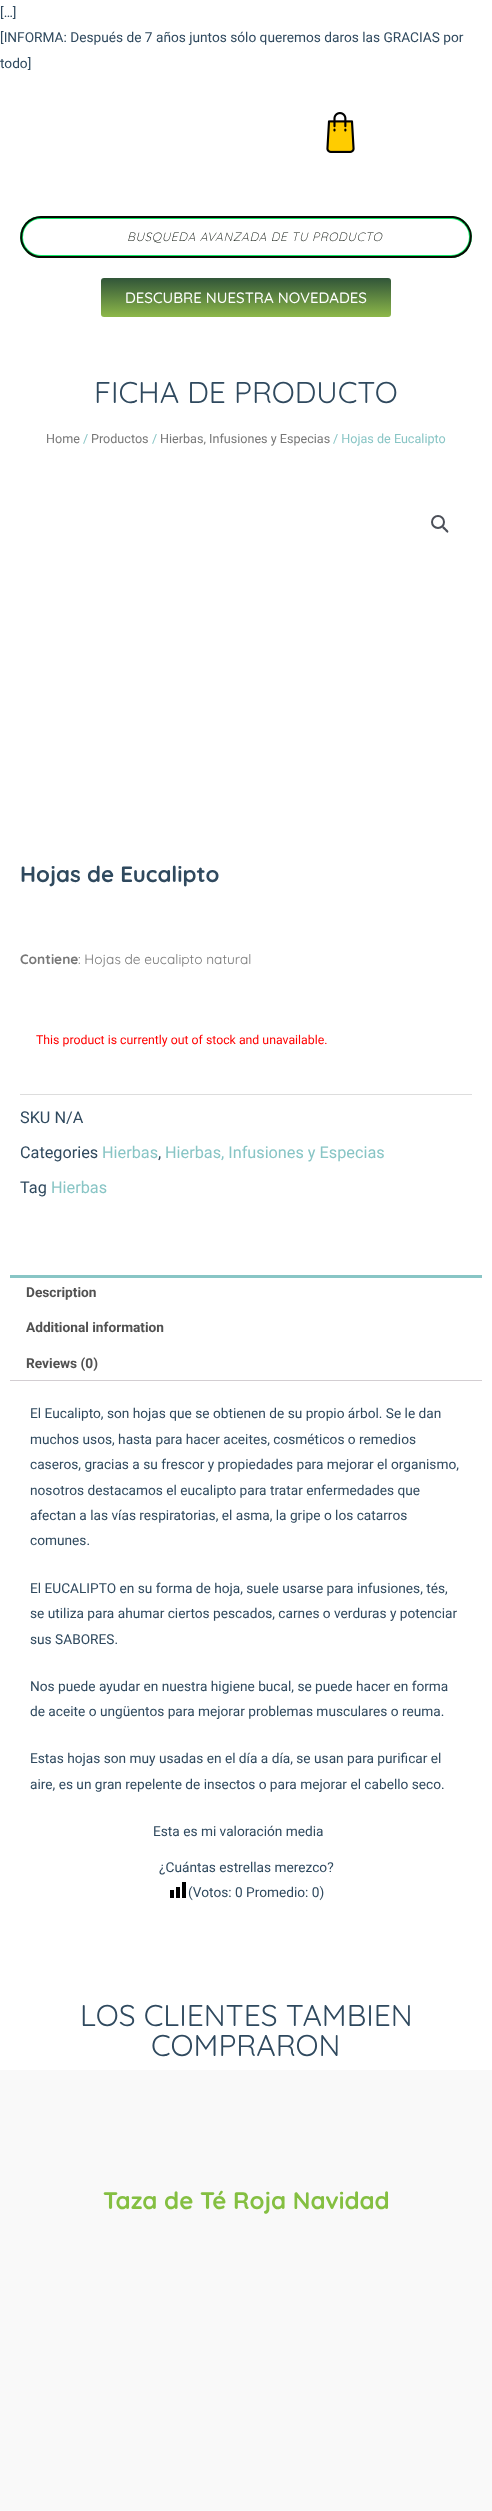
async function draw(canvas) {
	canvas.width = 492;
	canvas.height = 2511;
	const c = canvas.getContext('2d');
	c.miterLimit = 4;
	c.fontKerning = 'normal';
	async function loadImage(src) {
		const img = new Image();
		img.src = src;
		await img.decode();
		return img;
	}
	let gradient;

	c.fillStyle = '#fff';
	c.fillRect(0, 0, 492, 2511);
	c.font = '13.7px Roboto';
	c.fillStyle = '#2f495e';
	for (const [text, x, y] of [
		['[…]', 0, 17],
		['[INFORMA: Después de 7 años juntos sólo queremos daros las GRACIAS por', 0, 42],
		['todo]', 0, 68],
	]) {
		c.fillText(text, x, y);
	}
	c.drawImage(await loadImage('img1.png'), 326, 112, 29, 41);
	c.fillStyle = '#0de965';
	c.beginPath();
	c.roundRect(20, 216, 452, 42, 21);
	c.fill();
	c.beginPath();
	c.moveTo(465, 223);
	c.bezierCurveTo(475, 233, 471.5, 250, 458.5, 255.5);
	c.bezierCurveTo(456, 256.5, 453.5, 257, 451, 257);
	c.lineTo(39, 257);
	c.bezierCurveTo(34.5, 256.5, 30, 254.5, 27, 251);
	c.strokeStyle = '#0b0000f5';
	c.lineWidth = 2;
	c.stroke();
	c.beginPath();
	c.moveTo(27, 251);
	c.bezierCurveTo(17, 241, 20.5, 224, 33.5, 218.5);
	c.bezierCurveTo(36, 217.5, 38.5, 217, 41, 217);
	c.lineTo(453, 217);
	c.bezierCurveTo(457.5, 217.5, 462, 219.5, 465, 223);
	c.strokeStyle = '#070000f5';
	c.stroke();
	c.fillStyle = '#fff';
	c.beginPath();
	c.roundRect(23, 219, 446, 36, 18);
	c.fill();
	c.letterSpacing = '0.6px';
	c.font = 'italic 300 12px Quicksand';
	c.fillStyle = '#010900';
	c.fillText('BUSQUEDA AVANZADA DE TU PRODUCTO', 127, 241);
	gradient = c.createLinearGradient(246, 278, 246, 317);
	gradient.addColorStop(0, '#315539');
	gradient.addColorStop(1, '#8db849');
	c.fillStyle = gradient;
	c.beginPath();
	c.roundRect(101, 278, 290, 39, 3);
	c.fill();
	c.letterSpacing = '0px';
	c.font = '500 15px Quicksand';
	c.fillStyle = '#fff';
	c.fillText('DESCUBRE NUESTRA NOVEDADES', 125, 303);
	c.font = '30px Quicksand';
	c.fillStyle = '#2f495e';
	c.fillText('FICHA DE PRODUCTO', 94, 403);
	c.font = '12.6px Roboto';
	c.fillStyle = '#777';
	c.fillText('Home', 46, 443);
	c.fillStyle = '#88c5c5';
	c.fillText('/', 83, 443);
	c.fillStyle = '#777';
	c.fillText('Productos', 91, 443);
	c.fillStyle = '#88c5c5';
	c.fillText('/', 152, 443);
	c.fillStyle = '#777';
	c.fillText('Hierbas, Infusiones y Especias', 160, 443);
	c.fillStyle = '#88c5c5';
	c.fillText('/ Hojas de Eucalipto', 333, 443);
	c.beginPath();
	c.arc(438, 522, 6, 0, 2 * Math.PI);
	c.strokeStyle = '#4b4f58';
	c.stroke();
	c.fillStyle = '#4b4f58';
	c.beginPath();
	c.moveTo(442.5, 526.5);
	c.bezierCurveTo(443.5, 525.5, 445.5, 528, 446, 528.5);
	c.bezierCurveTo(446.5, 529.5, 449.5, 531, 448, 532.5);
	c.bezierCurveTo(447, 533.5, 445, 530.5, 444.5, 530);
	c.bezierCurveTo(444, 529.5, 441.5, 528, 442.5, 526.5);
	c.closePath();
	c.fill();
	c.font = 'bold 22.25px Quicksand';
	c.fillStyle = '#2f495e';
	c.fillText('Hojas de Eucalipto', 20, 882);
	c.font = 'bold 13.7px Quicksand';
	c.fillStyle = '#777';
	c.fillText('Contiene', 20, 964);
	c.font = '13.7px Quicksand';
	c.fillText(': Hojas de eucalipto natural', 78, 964);
	c.font = '12.3px Roboto';
	c.fillStyle = '#f00';
	c.fillText('This product is currently out of stock and unavailable.', 36, 1044);
	c.fillStyle = '#ddd';
	c.fillRect(20, 1094, 452, 1);
	c.font = '16.25px Roboto';
	c.fillStyle = '#2f495e';
	c.fillText('SKU N/A', 20, 1123);
	c.fillText('Categories', 20, 1158);
	c.fillStyle = '#88c5c5';
	c.fillText('Hierbas', 102, 1158);
	c.fillStyle = '#2f495e';
	c.fillText(',', 158, 1158);
	c.fillStyle = '#88c5c5';
	c.fillText('Hierbas, Infusiones y Especias', 165, 1158);
	c.fillStyle = '#2f495e';
	c.fillText('Tag', 20, 1193);
	c.fillStyle = '#88c5c5';
	c.fillText('Hierbas', 51, 1193);
	c.fillRect(10, 1275, 472, 3);
	c.font = 'bold 13.7px Roboto';
	c.fillStyle = '#515151';
	for (const [text, x, y] of [
		['Description', 26, 1297],
		['Additional information', 26, 1332],
		['Reviews (0)', 26, 1368],
	]) {
		c.fillText(text, x, y);
	}
	c.fillStyle = '#d3ced2';
	c.fillRect(10, 1380, 472, 1);
	c.font = '13.7px Roboto';
	c.fillStyle = '#2f495e';
	for (const [text, x, y] of [
		['El Eucalipto, son hojas que se obtienen de su propio árbol. Se le dan', 30, 1418],
		['muchos usos, hasta para hacer aceites, cosméticos o remedios', 30, 1444],
		['caseros, gracias a su frescor y propiedades para mejorar el organismo,', 30, 1469],
		['nosotros destacamos el eucalipto para tratar enfermedades que', 30, 1495],
		['afectan a las vías respiratorias, el asma, la gripe o los catarros', 30, 1520],
		['comunes.', 30, 1545],
		['El EUCALIPTO en su forma de hoja, suele usarse para infusiones, tés,', 30, 1593],
		['se utiliza para ahumar ciertos pescados, carnes o verduras y potenciar', 30, 1618],
		['sus SABORES.', 30, 1644],
		['Nos puede ayudar en nuestra higiene bucal, se puede hacer en forma', 30, 1691],
		['de aceite o ungüentos para mejorar problemas musculares o reuma.', 30, 1716],
		['Estas hojas son muy usadas en el día a día, se usan para purificar el', 30, 1763],
		['aire, es un gran repelente de insectos o para mejorar el cabello seco.', 30, 1789],
		['Esta es mi valoración media', 153, 1836],
		['¿Cuántas estrellas merezco?', 159, 1872],
	]) {
		c.fillText(text, x, y);
	}
	c.drawImage(await loadImage('img2.png'), 170, 1882, 16, 16);
	c.fillText('(Votos: 0 Promedio: 0)', 188, 1897);
	c.font = '30px Quicksand';
	c.fillText('LOS CLIENTES TAMBIEN', 80, 2026);
	c.fillText('COMPRARON', 151, 2056);
	c.fillStyle = '#f9f9f9';
	c.fillRect(0, 2070, 492, 441);
	c.font = 'bold 24px Quicksand';
	c.fillStyle = '#84bf41';
	c.fillText('Taza de Té Roja Navidad', 103, 2209);
}

draw(document.querySelector('canvas'));
